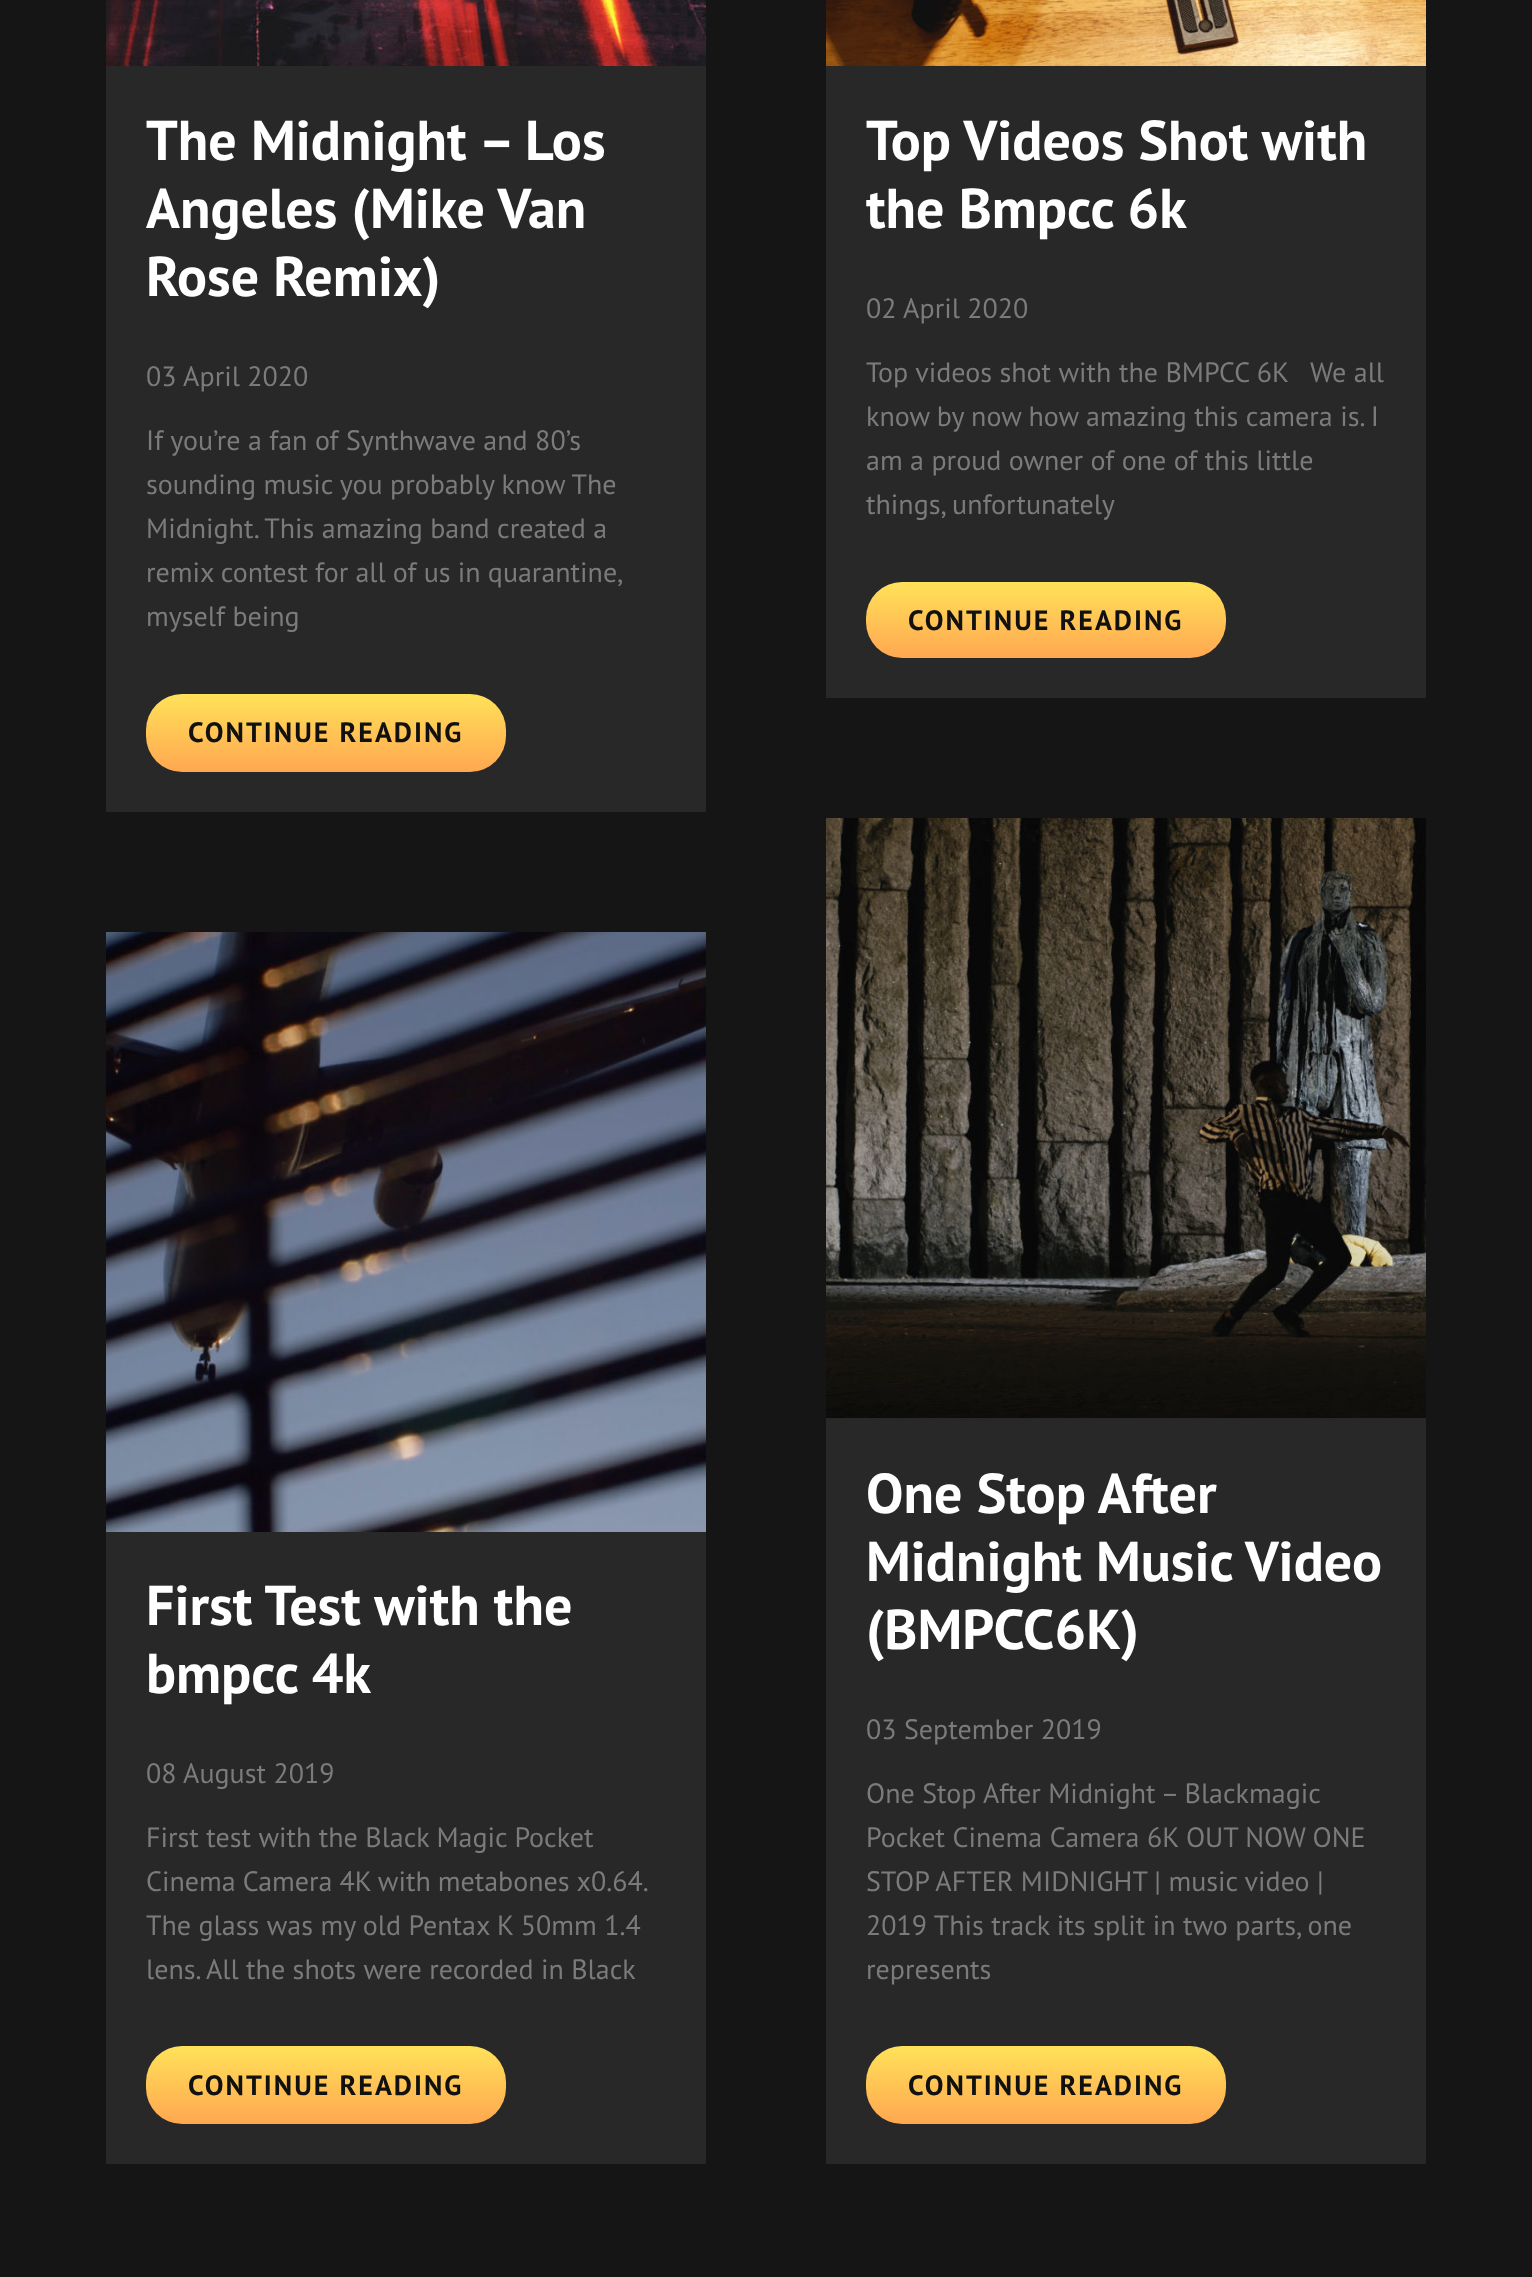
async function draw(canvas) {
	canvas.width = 1532;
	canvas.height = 2277;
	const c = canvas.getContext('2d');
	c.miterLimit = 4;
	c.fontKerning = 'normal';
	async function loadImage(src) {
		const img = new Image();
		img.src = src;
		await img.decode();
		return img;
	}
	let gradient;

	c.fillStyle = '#151515';
	c.fillRect(0, 0, 1532, 2277);
	c.fillStyle = '#282828';
	c.fillRect(106, 66, 600, 746);
	c.drawImage(await loadImage('img1.png'), 106, 0, 600, 66);
	c.font = 'bold 56px PT Sans';
	c.fillStyle = '#fff';
	for (const [text, x, y] of [
		['The Midnight – Los', 146, 160],
		['Angeles (Mike Van', 146, 228],
		['Rose Remix)', 146, 296],
	]) {
		c.fillText(text, x, y);
	}
	c.font = '28px PT Sans';
	c.fillStyle = '#7b7b7b';
	for (const [text, x, y] of [
		['03 April 2020', 146, 386],
		['If you’re a fan of Synthwave and 80’s', 146, 450],
		['sounding music you probably know The', 146, 494],
		['Midnight. This amazing band created a', 146, 538],
	]) {
		c.fillText(text, x, y);
	}
	c.wordSpacing = '-0.25px';
	c.fillText('remix contest for all of us in quarantine,', 146, 582);
	c.wordSpacing = '0px';
	c.fillText('myself being', 146, 626);
	gradient = c.createLinearGradient(326, 694, 326, 772);
	gradient.addColorStop(0, '#ffe259');
	gradient.addColorStop(1, '#ffa751');
	c.fillStyle = gradient;
	c.beginPath();
	c.roundRect(146, 694, 360, 78, 36);
	c.fill();
	c.letterSpacing = '2px';
	c.font = 'bold 28px PT Sans';
	c.fillStyle = '#111';
	c.fillText('CONTINUE READING', 188, 742);
	c.fillStyle = '#282828';
	c.fillRect(826, 66, 600, 632);
	c.drawImage(await loadImage('img2.png'), 826, 0, 600, 66);
	c.letterSpacing = '0px';
	c.font = 'bold 56px PT Sans';
	c.fillStyle = '#fff';
	c.fillText('Top Videos Shot with', 866, 160);
	c.fillText('the Bmpcc 6k', 866, 228);
	c.font = '28px PT Sans';
	c.fillStyle = '#7b7b7b';
	for (const [text, x, y] of [
		['02 April 2020', 866, 318],
		['Top videos shot with the BMPCC 6K   We all', 866, 382],
		['know by now how amazing this camera is. I', 866, 426],
		['am a proud owner of one of this little', 866, 470],
		['things, unfortunately', 866, 514],
	]) {
		c.fillText(text, x, y);
	}
	gradient = c.createLinearGradient(1046, 582, 1046, 658);
	gradient.addColorStop(0, '#ffe259');
	gradient.addColorStop(1, '#ffa751');
	c.fillStyle = gradient;
	c.beginPath();
	c.roundRect(866, 582, 360, 76, 36);
	c.fill();
	c.letterSpacing = '2px';
	c.font = 'bold 28px PT Sans';
	c.fillStyle = '#111';
	c.fillText('CONTINUE READING', 908, 630);
	c.fillStyle = '#282828';
	c.fillRect(106, 1532, 600, 632);
	c.drawImage(await loadImage('img3.png'), 106, 932, 600, 600);
	c.letterSpacing = '0px';
	c.font = 'bold 56px PT Sans';
	c.fillStyle = '#fff';
	c.fillText('First Test with the', 146, 1625);
	c.fillText('bmpcc 4k', 146, 1693);
	c.font = '28px PT Sans';
	c.fillStyle = '#7b7b7b';
	c.fillText('08 August 2019', 146, 1783);
	c.fillText('First test with the Black Magic Pocket', 146, 1847);
	c.wordSpacing = '-0.5px';
	c.fillText('Cinema Camera 4K with metabones x0.64.', 146, 1891);
	c.wordSpacing = '0px';
	c.fillText('The glass was my old Pentax K 50mm 1.4', 146, 1935);
	c.fillText('lens. All the shots were recorded in Black', 146, 1979);
	gradient = c.createLinearGradient(326, 2046, 326, 2124);
	gradient.addColorStop(0, '#ffe259');
	gradient.addColorStop(1, '#ffa751');
	c.fillStyle = gradient;
	c.beginPath();
	c.roundRect(146, 2046, 360, 78, 36);
	c.fill();
	c.letterSpacing = '2px';
	c.font = 'bold 28px PT Sans';
	c.fillStyle = '#111';
	c.fillText('CONTINUE READING', 188, 2095);
	c.fillStyle = '#282828';
	c.fillRect(826, 1418, 600, 746);
	c.drawImage(await loadImage('img4.png'), 826, 818, 600, 600);
	c.letterSpacing = '0px';
	c.font = 'bold 56px PT Sans';
	c.fillStyle = '#fff';
	for (const [text, x, y] of [
		['One Stop After', 866, 1513],
		['Midnight Music Video', 866, 1581],
		['(BMPCC6K)', 866, 1649],
	]) {
		c.fillText(text, x, y);
	}
	c.font = '28px PT Sans';
	c.fillStyle = '#7b7b7b';
	for (const [text, x, y] of [
		['03 September 2019', 866, 1739],
		['One Stop After Midnight – Blackmagic', 866, 1803],
		['Pocket Cinema Camera 6K OUT NOW ONE', 866, 1847],
		['STOP AFTER MIDNIGHT | music video |', 866, 1891],
		['2019 This track its split in two parts, one', 866, 1935],
		['represents', 866, 1979],
	]) {
		c.fillText(text, x, y);
	}
	gradient = c.createLinearGradient(1046, 2046, 1046, 2124);
	gradient.addColorStop(0, '#ffe259');
	gradient.addColorStop(1, '#ffa751');
	c.fillStyle = gradient;
	c.beginPath();
	c.roundRect(866, 2046, 360, 78, 36);
	c.fill();
	c.letterSpacing = '2px';
	c.font = 'bold 28px PT Sans';
	c.fillStyle = '#111';
	c.fillText('CONTINUE READING', 908, 2095);
}

draw(document.querySelector('canvas'));
